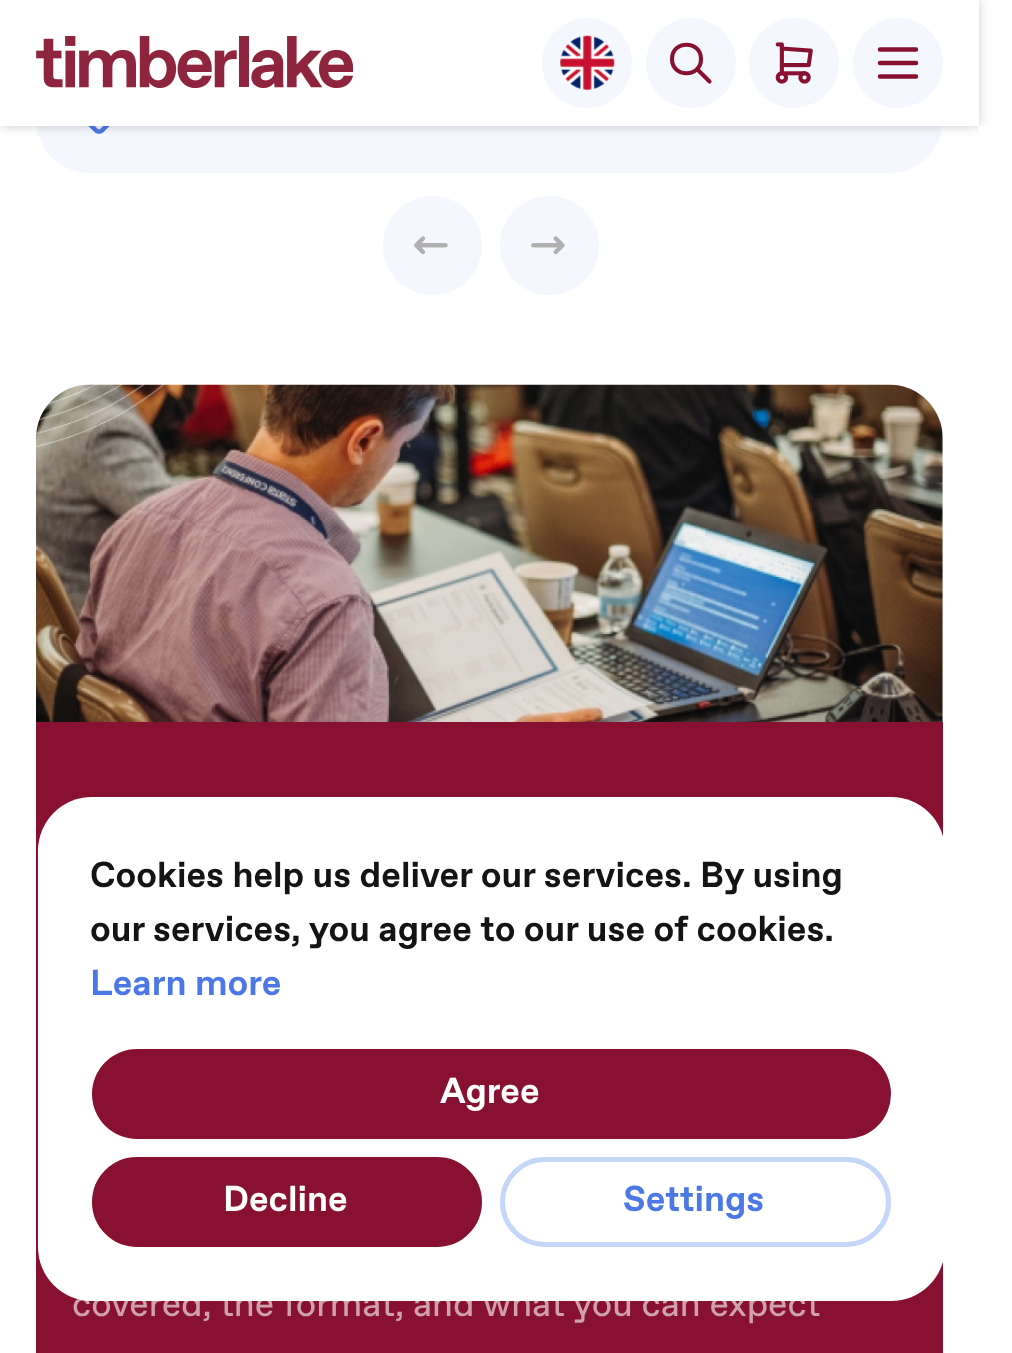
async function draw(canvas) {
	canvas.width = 1012;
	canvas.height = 1353;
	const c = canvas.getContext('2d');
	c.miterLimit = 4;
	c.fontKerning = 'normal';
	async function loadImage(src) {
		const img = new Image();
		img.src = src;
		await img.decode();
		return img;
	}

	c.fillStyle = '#fff';
	c.fillRect(0, 0, 1012, 1353);
	c.fillStyle = '#f5f7fe';
	c.beginPath();
	c.roundRect(36, -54, 907, 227, 54);
	c.fill();
	c.drawImage(await loadImage('img4.png'), 88, 126, 22, 8);
	c.fillStyle = '#00000033';
	c.filter = 'blur(5.5px)';
	c.beginPath();
	c.rect(0, 0, 979, 126);
	c.fill();
	c.filter = 'none';
	c.fillStyle = '#fff';
	c.fillRect(0, 0, 979, 126);
	c.drawImage(await loadImage('img1.png'), 36, 36, 317, 53);
	c.fillStyle = '#f5f7fe';
	c.beginPath();
	c.arc(587, 63, 45, 0, 2 * Math.PI);
	c.fill();
	c.drawImage(await loadImage('img2.png'), 560, 35, 55, 55);
	c.beginPath();
	c.arc(691, 63, 45, 0, 2 * Math.PI);
	c.fill();
	c.beginPath();
	c.moveTo(672, 59);
	c.bezierCurveTo(672, 78, 701, 78, 701, 59);
	c.bezierCurveTo(701, 40, 672, 40, 672, 59);
	c.closePath();
	c.moveTo(709.5, 81.5);
	c.lineTo(697, 69);
	c.strokeStyle = '#881131';
	c.lineWidth = 4.1;
	c.lineCap = 'round';
	c.lineJoin = 'round';
	c.stroke();
	c.beginPath();
	c.arc(794, 63, 45, 0, 2 * Math.PI);
	c.fill();
	c.drawImage(await loadImage('img3.png'), 775, 42, 38, 42);
	c.beginPath();
	c.arc(898, 63, 45, 0, 2 * Math.PI);
	c.fill();
	c.beginPath();
	c.moveTo(880, 49.5);
	c.lineTo(916, 49.5);
	c.moveTo(880, 63);
	c.lineTo(916, 63);
	c.moveTo(880, 76.5);
	c.lineTo(916, 76.5);
	c.lineWidth = 4.5;
	c.stroke();
	c.fillStyle = '#fff';
	c.fillRect(979, 126, 7, 7);
	c.fillStyle = '#881131';
	c.fillRect(36, 722, 907, 631);
	c.font = '36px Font';
	c.fillStyle = '#cfa0ad';
	c.fillText('covered, the format, and what you can expect', 72, 1316);
	c.fillStyle = '#fff';
	c.beginPath();
	c.roundRect(38, 797, 907, 504, 54);
	c.fill();
	c.font = 'bold 36px Font';
	c.fillStyle = '#141414';
	c.fillText('Cookies help us deliver our services. By using', 90, 887);
	c.fillText('our services, you agree to our use of cookies.', 90, 941);
	c.fillStyle = '#4c78e6';
	c.fillText('Learn more', 90, 995);
	c.fillStyle = '#881131';
	c.beginPath();
	c.roundRect(92, 1049, 799, 90, 45);
	c.fill();
	c.fillStyle = '#fff';
	c.fillText('Agree', 440, 1103);
	c.fillStyle = '#881131';
	c.beginPath();
	c.roundRect(94.5, 1159.5, 385, 85, 42.5);
	c.fill();
	c.lineWidth = 5;
	c.lineJoin = 'miter';
	c.stroke();
	c.fillStyle = '#fff';
	c.fillText('Decline', 223, 1211);
	c.beginPath();
	c.roundRect(502.5, 1159.5, 386, 85, 42.5);
	c.strokeStyle = '#c4d7f9';
	c.stroke();
	c.fillStyle = '#4c78e6';
	c.fillText('Settings', 623, 1211);
	c.fillStyle = '#f5f7fe';
	c.beginPath();
	c.arc(432.5, 245.5, 49.5, 0, 2 * Math.PI);
	c.fill();
	c.drawImage(await loadImage('img5.png'), 414, 236, 34, 19);
	c.beginPath();
	c.arc(549.5, 245.5, 49.5, 0, 2 * Math.PI);
	c.fill();
	c.drawImage(await loadImage('img6.png'), 531, 236, 34, 19);
	c.drawImage(await loadImage('img7.png'), 36, 384, 907, 338);
}

draw(document.querySelector('canvas'));
